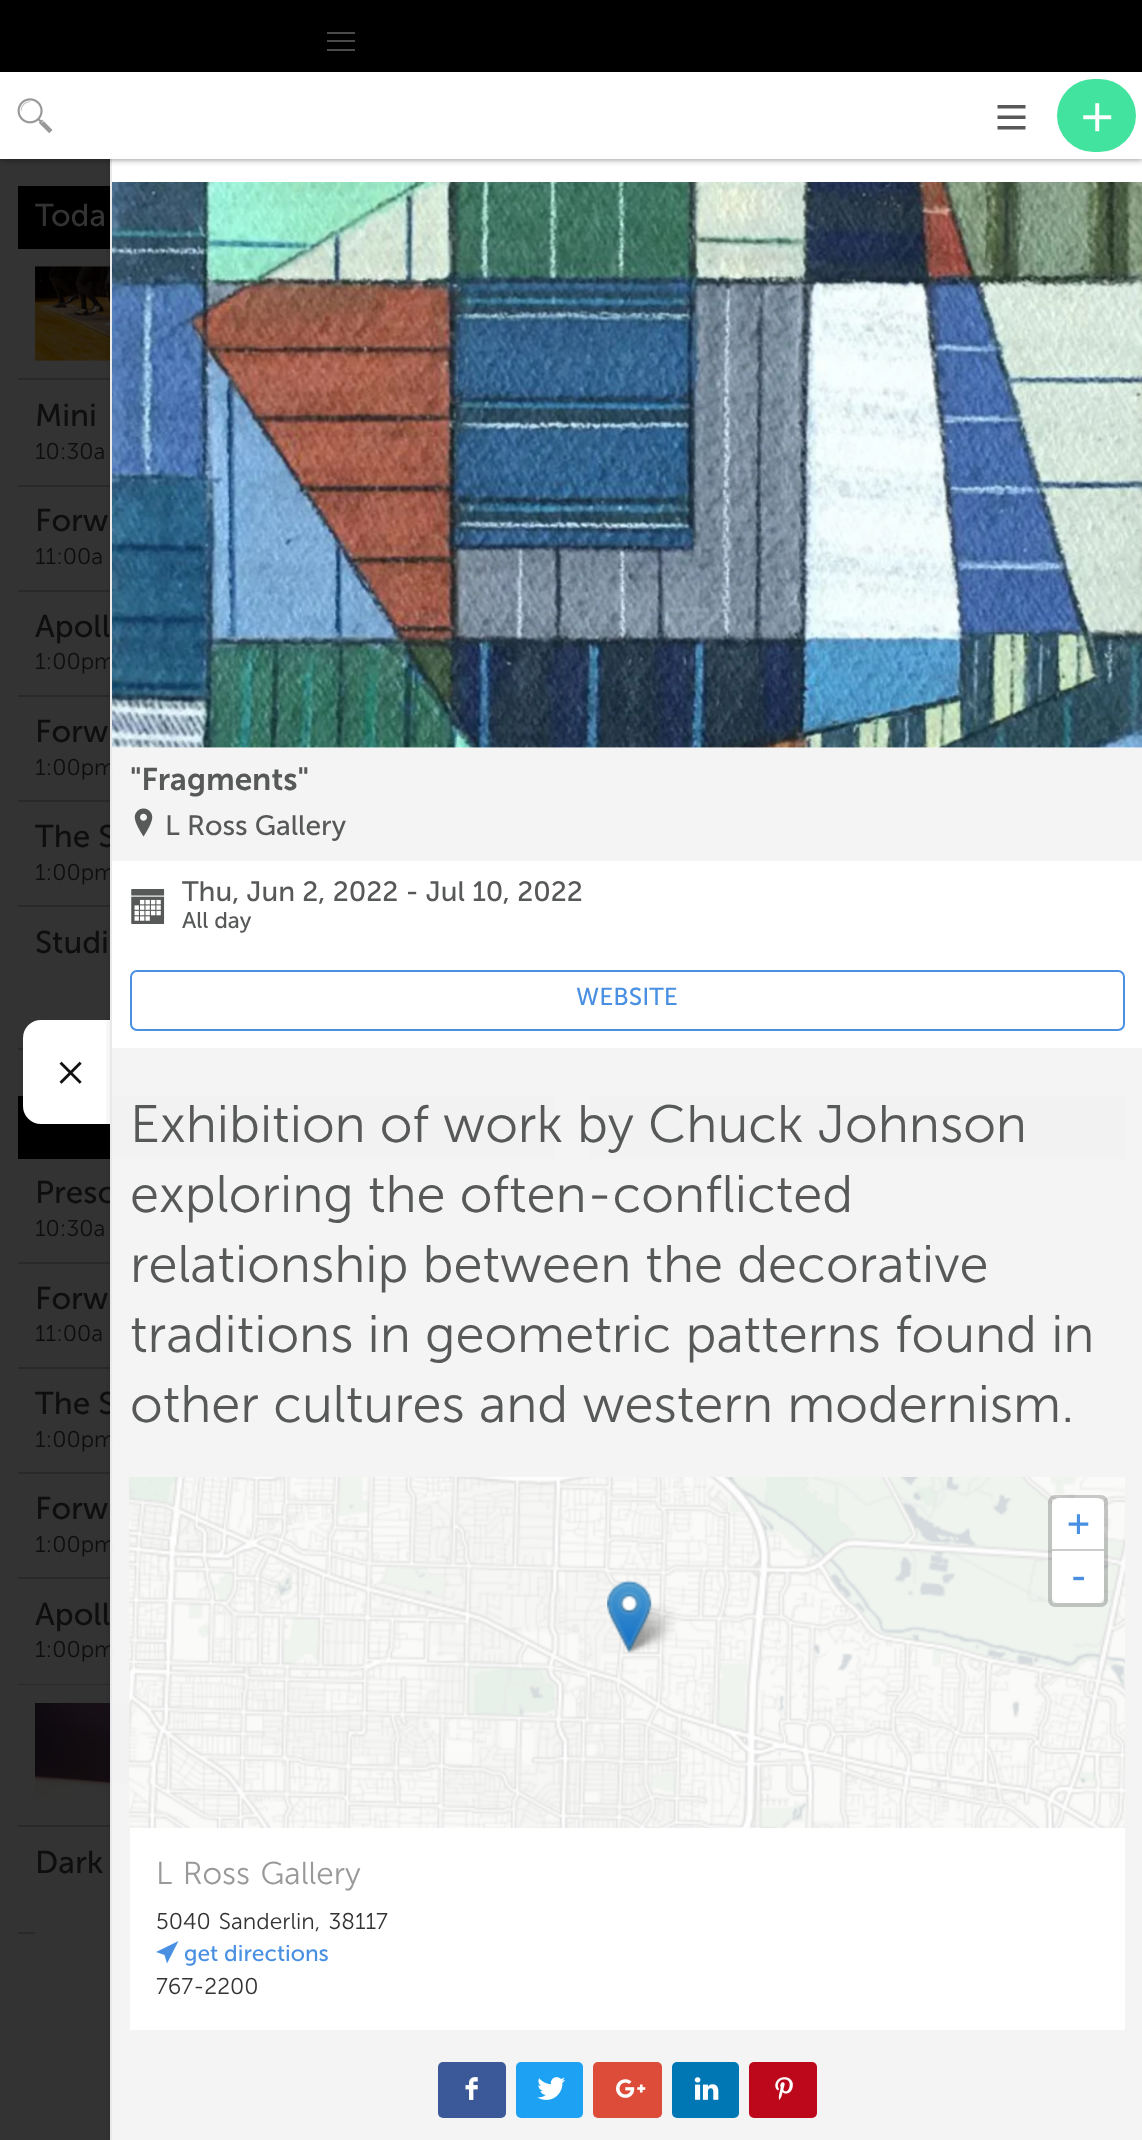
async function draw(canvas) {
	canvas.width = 1142;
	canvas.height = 2140;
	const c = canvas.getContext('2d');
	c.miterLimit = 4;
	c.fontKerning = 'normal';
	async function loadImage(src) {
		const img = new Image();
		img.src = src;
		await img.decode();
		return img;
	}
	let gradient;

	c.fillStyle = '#333';
	c.fillRect(0, 0, 1142, 2140);
	c.font = '300 22.75px Museo Sans';
	c.fillStyle = '#0e0e0e';
	c.fillText('1:00pm', 35, 669);
	c.fillStyle = '#292929';
	c.fillRect(18, 800, 537, 2);
	c.fillStyle = '#0e0e0e';
	c.fillText('1:00pm', 35, 775);
	c.font = '31.5px Museo Sans';
	c.fillText('The S', 35, 847);
	c.font = '300 22.75px Museo Sans';
	c.fillText('1:00pm', 35, 880);
	c.fillStyle = '#292929';
	c.fillRect(18, 1048, 537, 2);
	gradient = c.createLinearGradient(286, 1061, 286, 968);
	gradient.addColorStop(0, '#333');
	gradient.addColorStop(0.8, '#333333e6');
	gradient.addColorStop(1, '#33333300');
	c.fillStyle = gradient;
	c.fillRect(35, 1048, 502, 2);
	c.fillStyle = '#000';
	c.fillRect(18, 1096, 537, 63);
	c.fillStyle = '#292929';
	c.fillRect(18, 1262, 537, 2);
	c.font = '31.5px Museo Sans';
	c.fillStyle = '#0e0e0e';
	c.fillText('Presc', 35, 1203);
	c.fillStyle = '#292929';
	c.fillRect(18, 1367, 537, 2);
	c.fillRect(18, 1472, 537, 2);
	c.fillStyle = '#0e0e0e';
	c.fillText('The S', 35, 1414);
	c.font = '300 22.75px Museo Sans';
	c.fillText('1:00pm', 35, 1447);
	c.fillStyle = '#292929';
	c.fillRect(18, 1577, 111, 2);
	c.fillStyle = '#0e0e0e';
	c.fillText('1:00pm', 35, 1552);
	c.fillStyle = '#292929';
	c.fillRect(18, 1684, 111, 1);
	c.fillStyle = '#0e0e0e';
	c.fillText('1:00pm', 35, 1657);
	c.fillStyle = '#292929';
	c.fillRect(18, 1825, 111, 2);
	c.drawImage(await loadImage('img5.png'), 35, 1703, 95, 95);
	c.fillRect(18, 1932, 112, 2);
	gradient = c.createLinearGradient(286, 1971, 286, 1878);
	gradient.addColorStop(0, '#333');
	gradient.addColorStop(0.8, '#333333e6');
	gradient.addColorStop(1, '#33333300');
	c.fillStyle = gradient;
	c.fillRect(35, 1932, 95, 2);
	c.fillStyle = '#000';
	c.fillRect(18, 186, 92, 63);
	c.fillStyle = '#292929';
	c.fillRect(18, 378, 92, 2);
	c.drawImage(await loadImage('img4.png'), 35, 266, 75, 95);
	for (const [x, y, w, h, color] of [
		[18, 485, 92, 2, '#292929'],
		[18, 590, 92, 2, '#292929'],
		[18, 695, 92, 2, '#292929'],
		[18, 905, 92, 2, '#292929'],
		[590, 770, 535, 2, '#292929'],
		[590, 1096, 535, 63, '#000'],
		[590, 1262, 535, 2, '#292929'],
		[590, 1395, 535, 2, '#292929'],
	]) {
		c.fillStyle = color;
		c.fillRect(x, y, w, h);
	}
	c.fillStyle = '#fff';
	c.beginPath();
	c.roundRect(23, 1020, 87, 104, [18, 0, 0, 18]);
	c.fill();
	c.save();
	c.beginPath();
	c.rect(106, 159, 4, 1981);
	c.clip();
	c.fillStyle = '#0000000f';
	c.filter = 'blur(3.5px)';
	c.beginPath();
	c.rect(107, 117, 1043, 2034);
	c.fill();
	c.filter = 'none';
	c.restore();
	c.fillStyle = '#e8e9ea';
	c.fillRect(110, 159, 2, 1981);
	c.fillStyle = '#fff';
	c.fillRect(112, 159, 1030, 23);
	c.fillStyle = '#00000080';
	c.filter = 'blur(3.5px)';
	c.beginPath();
	c.rect(0, 72, 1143, 87);
	c.fill();
	c.filter = 'none';
	for (const [x, y, w, h, color] of [
		[0, 0, 1142, 72, '#000'],
		[327, 32, 28, 2, '#4a4a4a'],
		[327, 40, 28, 2, '#4a4a4a'],
		[327, 49, 28, 2, '#4a4a4a'],
		[0, 72, 1142, 87, '#fff'],
	]) {
		c.fillStyle = color;
		c.fillRect(x, y, w, h);
	}
	c.drawImage(await loadImage('img1.png'), 17, 98, 36, 35);
	c.drawImage(await loadImage('img2.png'), 997, 105, 29, 25);
	c.fillStyle = '#42e39e';
	c.beginPath();
	c.roundRect(1057, 79, 79, 73, 36.5);
	c.fill();
	c.drawImage(await loadImage('img3.png'), 1083, 103, 29, 29);
	c.font = '31.5px Museo Sans';
	c.fillStyle = '#333';
	c.fillText('Toda', 35, 226);
	c.fillStyle = '#0e0e0e';
	c.fillText('Mini', 35, 426);
	c.font = '300 22.75px Museo Sans';
	c.fillText('10:30a', 35, 459);
	c.font = '31.5px Museo Sans';
	c.fillText('Forw', 35, 531);
	c.font = '300 22.75px Museo Sans';
	c.fillText('11:00a', 35, 564);
	c.font = '31.5px Museo Sans';
	for (const [text, x, y] of [
		['Apoll', 35, 637],
		['Forw', 35, 742],
		['Studi', 35, 953],
	]) {
		c.fillText(text, x, y);
	}
	c.font = '300 22.75px Museo Sans';
	c.fillText('10:30a', 35, 1236);
	c.font = '31.5px Museo Sans';
	c.fillText('Forw', 35, 1309);
	c.font = '300 22.75px Museo Sans';
	c.fillText('11:00a', 35, 1341);
	c.font = '31.5px Museo Sans';
	for (const [text, x, y] of [
		['Forw', 35, 1519],
		['Apoll', 35, 1625],
		['Dark', 35, 1873],
	]) {
		c.fillText(text, x, y);
	}
	c.drawImage(await loadImage('img6.png'), 59, 1061, 23, 23);
	c.fillStyle = '#fffffff2';
	c.fillRect(112, 747, 1030, 1393);
	c.drawImage(await loadImage('img7.png'), 112, 182, 1030, 566);
	c.font = '600 31.5px Museo Sans';
	c.fillStyle = '#575858';
	c.fillText('"Fragments"', 130, 790);
	c.drawImage(await loadImage('img8.png'), 134, 808, 19, 29);
	c.font = '28px Museo Sans';
	c.fillText('L Ross Gallery', 165, 835);
	c.fillStyle = '#fff';
	c.fillRect(112, 861, 1030, 187);
	c.drawImage(await loadImage('img9.png'), 131, 889, 34, 35);
	c.fillStyle = '#575858';
	c.fillText('Thu, Jun 2, 2022 - Jul 10, 2022', 182, 901);
	c.font = '22.75px Museo Sans';
	c.fillText('All day', 182, 928);
	c.beginPath();
	c.roundRect(131, 971, 993, 59, 6);
	c.strokeStyle = '#4a90e2';
	c.lineWidth = 2;
	c.stroke();
	c.font = '24.5px Museo Sans';
	c.fillStyle = '#4a90e2';
	c.fillText('WEBSITE', 576, 1005);
	c.font = '300 52.5px Museo Sans';
	c.fillStyle = '#575858';
	for (const [text, x, y] of [
		['Exhibition of work by Chuck Johnson', 130, 1142],
		['exploring the often-conflicted', 130, 1212],
		['relationship between the decorative', 130, 1282],
		['traditions in geometric patterns found in', 130, 1352],
		['other cultures and western modernism.', 130, 1422],
	]) {
		c.fillText(text, x, y);
	}
	c.fillStyle = '#fff';
	c.fillRect(130, 1749, 995, 281);
	c.drawImage(await loadImage('img10.png'), 129, 1477, 408, 274);
	c.drawImage(await loadImage('img11.png'), 537, 1477, 448, 274);
	c.drawImage(await loadImage('img12.png'), 985, 1477, 140, 274);
	c.drawImage(await loadImage('img13.png'), 129, 1750, 408, 78);
	c.drawImage(await loadImage('img14.png'), 537, 1750, 448, 78);
	c.drawImage(await loadImage('img15.png'), 985, 1750, 140, 78);
	c.drawImage(await loadImage('img17.png'), 623, 1603, 52, 50);
	c.drawImage(await loadImage('img16.png'), 607, 1580, 45, 73);
	c.beginPath();
	c.roundRect(1050, 1497, 56, 108, 5);
	c.strokeStyle = '#00000033';
	c.lineWidth = 4;
	c.stroke();
	c.beginPath();
	c.roundRect(1052, 1498, 52, 53, [7, 7, 0, 0]);
	c.fill();
	c.fillStyle = '#ccc';
	c.fillRect(1052, 1549, 52, 2);
	c.font = '38px DejaVu Sans Mono';
	c.fillStyle = '#4a90e2';
	c.fillText('+', 1067, 1536);
	c.fillStyle = '#fff';
	c.beginPath();
	c.roundRect(1052, 1551, 52, 52, [0, 0, 7, 7]);
	c.fill();
	c.font = '42px DejaVu Sans Mono';
	c.fillStyle = '#4a90e2';
	c.fillText('-', 1066, 1590);
	c.wordSpacing = '2px';
	c.font = '300 31.5px Museo Sans';
	c.fillStyle = '#999';
	c.fillText('L Ross Gallery', 156, 1884);
	c.font = '300 22.75px Museo Sans';
	c.fillStyle = '#333';
	c.fillText('5040 Sanderlin, 38117', 156, 1929);
	c.fillStyle = '#4a90e2';
	c.beginPath();
	c.moveTo(178.5, 1941);
	c.lineTo(167, 1963.5);
	c.lineTo(164.5, 1955);
	c.lineTo(156, 1952);
	c.closePath();
	c.fill();
	c.wordSpacing = '0px';
	c.font = '22.75px Museo Sans';
	c.fillText('get directions', 184, 1961);
	c.font = '300 22.75px Museo Sans';
	c.fillStyle = '#333';
	c.fillText('767-2200', 156, 1994);
	c.fillStyle = '#3b5998';
	c.beginPath();
	c.roundRect(438, 2062, 68, 56, 5);
	c.fill();
	c.drawImage(await loadImage('img18.png'), 465, 2077, 13, 23);
	c.fillStyle = '#1da1f2';
	c.beginPath();
	c.roundRect(516, 2062, 67, 56, 5);
	c.fill();
	c.drawImage(await loadImage('img19.png'), 537, 2077, 28, 23);
	c.fillStyle = '#dd4b39';
	c.beginPath();
	c.roundRect(593, 2062, 69, 56, 5);
	c.fill();
	c.drawImage(await loadImage('img20.png'), 616, 2079, 30, 19);
	c.fillStyle = '#0077b5';
	c.beginPath();
	c.roundRect(672, 2062, 67, 56, 5);
	c.fill();
	c.drawImage(await loadImage('img21.png'), 694, 2077, 25, 23);
	c.fillStyle = '#bd081c';
	c.beginPath();
	c.roundRect(749, 2062, 68, 56, 5);
	c.fill();
	c.drawImage(await loadImage('img22.png'), 775, 2077, 18, 23);
}

draw(document.querySelector('canvas'));
